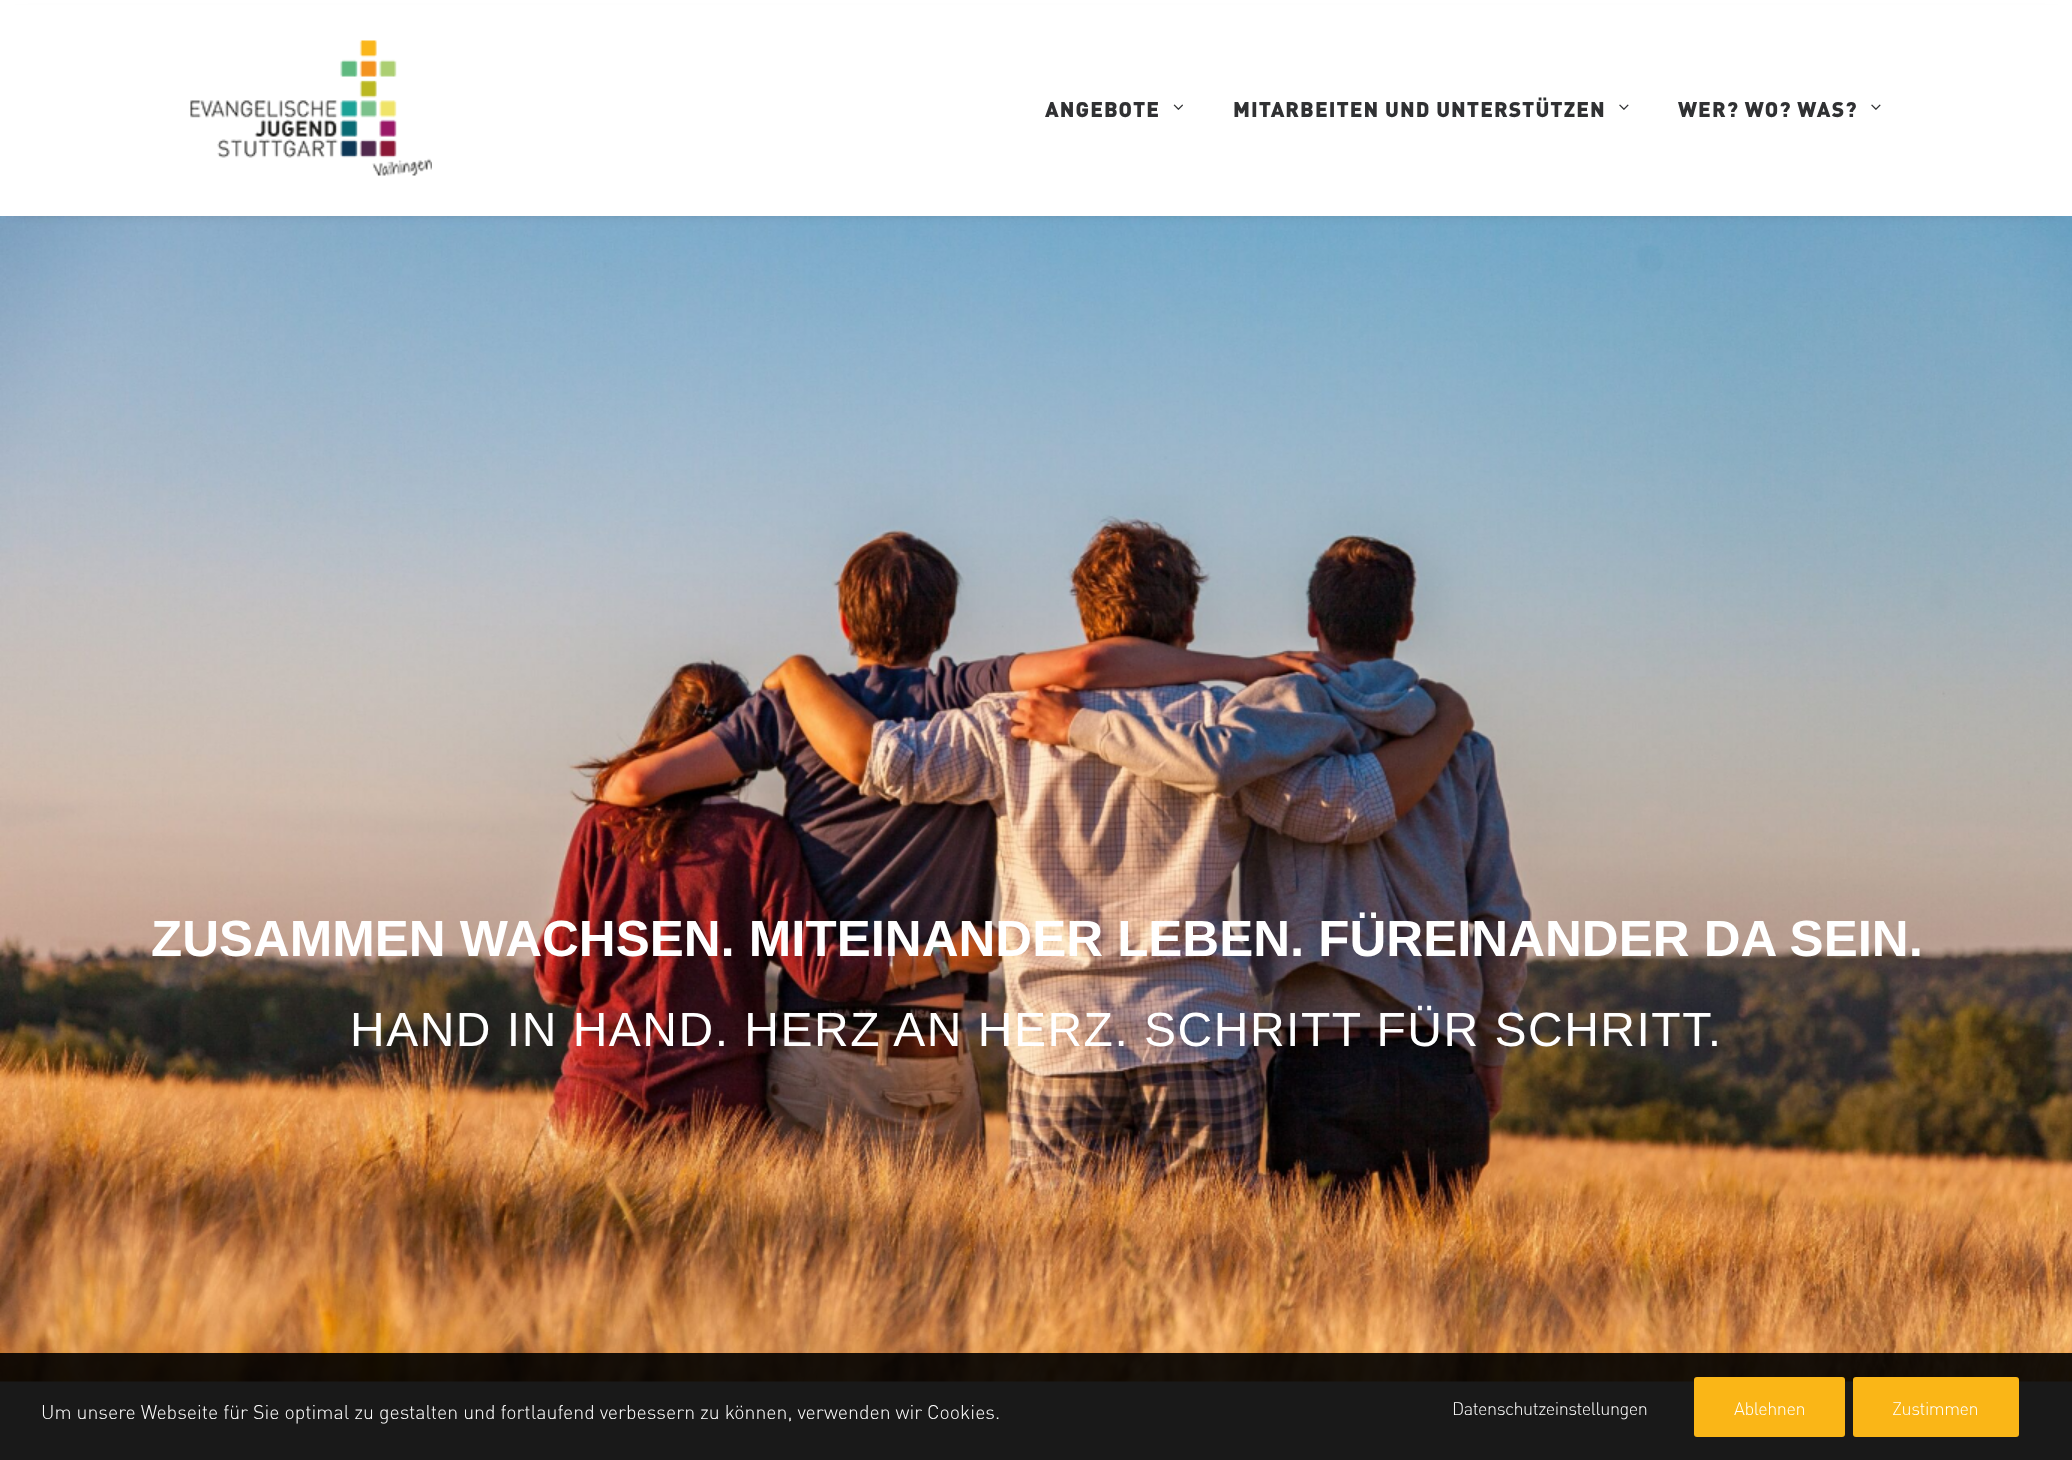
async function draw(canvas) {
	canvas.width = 2072;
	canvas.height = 1460;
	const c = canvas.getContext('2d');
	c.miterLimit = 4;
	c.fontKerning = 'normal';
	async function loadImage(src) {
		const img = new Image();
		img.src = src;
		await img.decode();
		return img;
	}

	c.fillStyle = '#fff';
	c.fillRect(0, 0, 2072, 1460);
	c.drawImage(await loadImage('img4.png'), 0, 216, 2072, 1166);
	c.fillStyle = '#00000099';
	c.filter = 'blur(7.5px)';
	c.beginPath();
	c.rect(15, 21, 2043, 186);
	c.fill();
	c.filter = 'none';
	c.fillStyle = '#fff';
	c.fillRect(0, 5, 2072, 211);
	c.drawImage(await loadImage('img1.png'), 190, 40, 242, 136);
	c.letterSpacing = '1.05px';
	c.font = '900 21px DIN';
	c.fillStyle = '#303133';
	c.fillText('ANGEBOTE', 1045, 117);
	c.drawImage(await loadImage('img2.png'), 1173, 104, 10, 6);
	c.fillText('MITARBEITEN UND UNTERSTÜTZEN', 1233, 117);
	c.drawImage(await loadImage('img3.png'), 1619, 104, 10, 6);
	c.fillText('WER? WO? WAS?', 1678, 117);
	c.drawImage(await loadImage('img3.png'), 1871, 104, 10, 6);
	c.letterSpacing = '0px';
	c.font = 'bold 51px Liberation Sans';
	c.fillStyle = '#fff';
	c.fillText('ZUSAMMEN WACHSEN. MITEINANDER LEBEN. FÜREINANDER DA SEIN.', 151, 956);
	c.letterSpacing = '1.5px';
	c.font = '48px Liberation Sans';
	c.fillText('HAND IN HAND. HERZ AN HERZ. SCHRITT FÜR SCHRITT.', 350, 1046);
	c.fillStyle = '#000000e6';
	c.fillRect(0, 1353, 2072, 107);
	c.letterSpacing = '0px';
	c.font = '300 19.5px DIN';
	c.fillStyle = '#fff';
	c.fillText('Um unsere Webseite für Sie optimal zu gestalten und fortlaufend verbessern zu können, verwenden wir Cookies.', 41, 1419);
	c.letterSpacing = '-0.45px';
	c.font = '300 18px DIN';
	c.fillText('Datenschutzeinstellungen', 1452, 1415);
	c.fillStyle = '#fab617';
	c.beginPath();
	c.roundRect(1694, 1377, 151, 60, 3);
	c.fill();
	c.fillStyle = '#fff';
	c.fillText('Ablehnen', 1734, 1415);
	c.fillStyle = '#fab617';
	c.beginPath();
	c.roundRect(1853, 1377, 166, 60, 3);
	c.fill();
	c.fillStyle = '#fff';
	c.fillText('Zustimmen', 1892, 1415);
}

draw(document.querySelector('canvas'));
